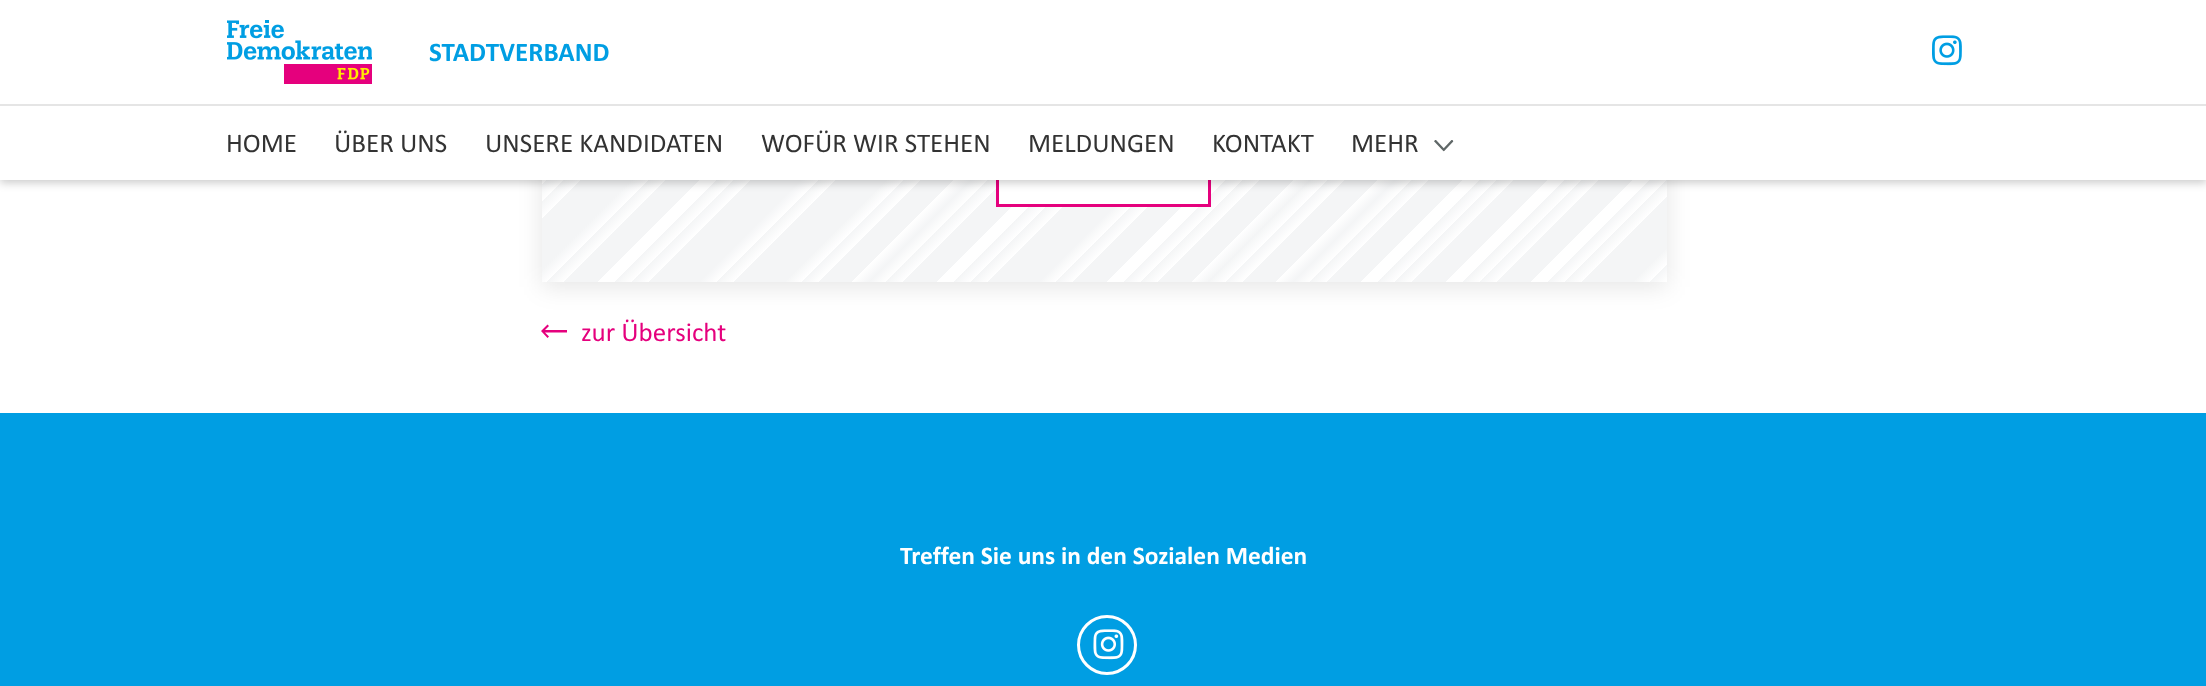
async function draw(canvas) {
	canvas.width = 2206;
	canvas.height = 686;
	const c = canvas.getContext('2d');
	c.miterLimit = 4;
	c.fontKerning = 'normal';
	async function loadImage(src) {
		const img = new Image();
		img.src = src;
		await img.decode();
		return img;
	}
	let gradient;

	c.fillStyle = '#fff';
	c.fillRect(0, 0, 2206, 686);
	c.fillStyle = '#0000001a';
	c.filter = 'blur(12px)';
	c.beginPath();
	c.rect(542, -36, 1125, 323);
	c.fill();
	c.filter = 'none';
	gradient = c.createLinearGradient(1525, 423, 677, -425);
	gradient.addColorStop(0, '#fff');
	gradient.addColorStop(0, '#fff');
	gradient.addColorStop(0.01, '#f4f5f6');
	gradient.addColorStop(0.01, '#f4f5f6');
	gradient.addColorStop(0.01, '#fff');
	gradient.addColorStop(0.01, '#fff');
	gradient.addColorStop(0.02, '#f4f5f6');
	gradient.addColorStop(0.03, '#f4f5f6');
	gradient.addColorStop(0.03, '#fff');
	gradient.addColorStop(0.03, '#fff');
	gradient.addColorStop(0.03, '#f4f5f6');
	gradient.addColorStop(0.04, '#f4f5f6');
	gradient.addColorStop(0.04, '#fff');
	gradient.addColorStop(0.04, '#fff');
	gradient.addColorStop(0.04, '#f4f5f6');
	gradient.addColorStop(0.05, '#f4f5f6');
	gradient.addColorStop(0.05, '#fff');
	gradient.addColorStop(0.05, '#fff');
	gradient.addColorStop(0.06, '#f4f5f6');
	gradient.addColorStop(0.06, '#f4f5f6');
	gradient.addColorStop(0.06, '#fff');
	gradient.addColorStop(0.06, '#fff');
	gradient.addColorStop(0.07, '#f4f5f6');
	gradient.addColorStop(0.07, '#f4f5f6');
	gradient.addColorStop(0.07, '#fff');
	gradient.addColorStop(0.08, '#fff');
	gradient.addColorStop(0.08, '#f4f5f6');
	gradient.addColorStop(0.09, '#f4f5f6');
	gradient.addColorStop(0.09, '#fff');
	gradient.addColorStop(0.09, '#fff');
	gradient.addColorStop(0.09, '#f4f5f6');
	gradient.addColorStop(0.1, '#f4f5f6');
	gradient.addColorStop(0.1, '#fff');
	gradient.addColorStop(0.1, '#fff');
	gradient.addColorStop(0.11, '#f4f5f6');
	gradient.addColorStop(0.11, '#f4f5f6');
	gradient.addColorStop(0.11, '#fff');
	gradient.addColorStop(0.11, '#fff');
	gradient.addColorStop(0.12, '#f4f5f6');
	gradient.addColorStop(0.12, '#f4f5f6');
	gradient.addColorStop(0.12, '#fff');
	gradient.addColorStop(0.13, '#fff');
	gradient.addColorStop(0.13, '#f4f5f6');
	gradient.addColorStop(0.14, '#f4f5f6');
	gradient.addColorStop(0.14, '#fff');
	gradient.addColorStop(0.14, '#fff');
	gradient.addColorStop(0.14, '#f4f5f6');
	gradient.addColorStop(0.15, '#f4f5f6');
	gradient.addColorStop(0.15, '#fff');
	gradient.addColorStop(0.15, '#fff');
	gradient.addColorStop(0.16, '#f4f5f6');
	gradient.addColorStop(0.16, '#f4f5f6');
	gradient.addColorStop(0.16, '#fff');
	gradient.addColorStop(0.16, '#fff');
	gradient.addColorStop(0.17, '#f4f5f6');
	gradient.addColorStop(0.17, '#f4f5f6');
	gradient.addColorStop(0.17, '#fff');
	gradient.addColorStop(0.18, '#fff');
	gradient.addColorStop(0.18, '#f4f5f6');
	gradient.addColorStop(0.19, '#f4f5f6');
	gradient.addColorStop(0.19, '#fff');
	gradient.addColorStop(0.19, '#fff');
	gradient.addColorStop(0.19, '#f4f5f6');
	gradient.addColorStop(0.2, '#f4f5f6');
	gradient.addColorStop(0.2, '#fff');
	gradient.addColorStop(0.2, '#fff');
	gradient.addColorStop(0.21, '#f4f5f6');
	gradient.addColorStop(0.21, '#f4f5f6');
	gradient.addColorStop(0.21, '#fff');
	gradient.addColorStop(0.21, '#fff');
	gradient.addColorStop(0.22, '#f4f5f6');
	gradient.addColorStop(0.22, '#f4f5f6');
	gradient.addColorStop(0.23, '#fff');
	gradient.addColorStop(0.23, '#fff');
	gradient.addColorStop(0.23, '#f4f5f6');
	gradient.addColorStop(0.24, '#f4f5f6');
	gradient.addColorStop(0.24, '#fff');
	gradient.addColorStop(0.24, '#fff');
	gradient.addColorStop(0.24, '#f4f5f6');
	gradient.addColorStop(0.25, '#f4f5f6');
	gradient.addColorStop(0.25, '#fff');
	gradient.addColorStop(0.25, '#fff');
	gradient.addColorStop(0.26, '#f4f5f6');
	gradient.addColorStop(0.26, '#f4f5f6');
	gradient.addColorStop(0.26, '#fff');
	gradient.addColorStop(0.26, '#fff');
	gradient.addColorStop(0.27, '#f4f5f6');
	gradient.addColorStop(0.27, '#f4f5f6');
	gradient.addColorStop(0.28, '#fff');
	gradient.addColorStop(0.28, '#fff');
	gradient.addColorStop(0.28, '#f4f5f6');
	gradient.addColorStop(0.29, '#f4f5f6');
	gradient.addColorStop(0.29, '#fff');
	gradient.addColorStop(0.29, '#fff');
	gradient.addColorStop(0.29, '#f4f5f6');
	gradient.addColorStop(0.3, '#f4f5f6');
	gradient.addColorStop(0.3, '#fff');
	gradient.addColorStop(0.3, '#fff');
	gradient.addColorStop(0.31, '#f4f5f6');
	gradient.addColorStop(0.31, '#f4f5f6');
	gradient.addColorStop(0.31, '#fff');
	gradient.addColorStop(0.31, '#fff');
	gradient.addColorStop(0.32, '#f4f5f6');
	gradient.addColorStop(0.32, '#f4f5f6');
	gradient.addColorStop(0.32, '#fff');
	gradient.addColorStop(0.33, '#fff');
	gradient.addColorStop(0.33, '#f4f5f6');
	gradient.addColorStop(0.34, '#f4f5f6');
	gradient.addColorStop(0.34, '#fff');
	gradient.addColorStop(0.34, '#fff');
	gradient.addColorStop(0.34, '#f4f5f6');
	gradient.addColorStop(0.35, '#f4f5f6');
	gradient.addColorStop(0.35, '#fff');
	gradient.addColorStop(0.35, '#fff');
	gradient.addColorStop(0.36, '#f4f5f6');
	gradient.addColorStop(0.36, '#f4f5f6');
	gradient.addColorStop(0.36, '#fff');
	gradient.addColorStop(0.36, '#fff');
	gradient.addColorStop(0.37, '#f4f5f6');
	gradient.addColorStop(0.38, '#f4f5f6');
	gradient.addColorStop(0.38, '#fff');
	gradient.addColorStop(0.38, '#fff');
	gradient.addColorStop(0.38, '#f4f5f6');
	gradient.addColorStop(0.39, '#f4f5f6');
	gradient.addColorStop(0.39, '#fff');
	gradient.addColorStop(0.39, '#fff');
	gradient.addColorStop(0.39, '#f4f5f6');
	gradient.addColorStop(0.4, '#f4f5f6');
	gradient.addColorStop(0.4, '#fff');
	gradient.addColorStop(0.4, '#fff');
	gradient.addColorStop(0.41, '#f4f5f6');
	gradient.addColorStop(0.41, '#f4f5f6');
	gradient.addColorStop(0.41, '#fff');
	gradient.addColorStop(0.41, '#fff');
	gradient.addColorStop(0.42, '#f4f5f6');
	gradient.addColorStop(0.42, '#f4f5f6');
	gradient.addColorStop(0.42, '#fff');
	gradient.addColorStop(0.43, '#fff');
	gradient.addColorStop(0.43, '#f4f5f6');
	gradient.addColorStop(0.44, '#f4f5f6');
	gradient.addColorStop(0.44, '#fff');
	gradient.addColorStop(0.44, '#fff');
	gradient.addColorStop(0.44, '#f4f5f6');
	gradient.addColorStop(0.45, '#f4f5f6');
	gradient.addColorStop(0.45, '#fff');
	gradient.addColorStop(0.45, '#fff');
	gradient.addColorStop(0.46, '#f4f5f6');
	gradient.addColorStop(0.46, '#f4f5f6');
	gradient.addColorStop(0.46, '#fff');
	gradient.addColorStop(0.46, '#fff');
	gradient.addColorStop(0.47, '#f4f5f6');
	gradient.addColorStop(0.47, '#f4f5f6');
	gradient.addColorStop(0.48, '#fff');
	gradient.addColorStop(0.48, '#fff');
	gradient.addColorStop(0.48, '#f4f5f6');
	gradient.addColorStop(0.49, '#f4f5f6');
	gradient.addColorStop(0.49, '#fff');
	gradient.addColorStop(0.49, '#fff');
	gradient.addColorStop(0.49, '#f4f5f6');
	gradient.addColorStop(0.5, '#f4f5f6');
	gradient.addColorStop(0.5, '#fff');
	gradient.addColorStop(0.5, '#fff');
	gradient.addColorStop(0.51, '#f4f5f6');
	gradient.addColorStop(0.51, '#f4f5f6');
	gradient.addColorStop(0.51, '#fff');
	gradient.addColorStop(0.51, '#fff');
	gradient.addColorStop(0.52, '#f4f5f6');
	gradient.addColorStop(0.53, '#f4f5f6');
	gradient.addColorStop(0.53, '#fff');
	gradient.addColorStop(0.53, '#fff');
	gradient.addColorStop(0.53, '#f4f5f6');
	gradient.addColorStop(0.54, '#f4f5f6');
	gradient.addColorStop(0.54, '#fff');
	gradient.addColorStop(0.54, '#fff');
	gradient.addColorStop(0.54, '#f4f5f6');
	gradient.addColorStop(0.55, '#f4f5f6');
	gradient.addColorStop(0.55, '#fff');
	gradient.addColorStop(0.55, '#fff');
	gradient.addColorStop(0.56, '#f4f5f6');
	gradient.addColorStop(0.56, '#f4f5f6');
	gradient.addColorStop(0.56, '#fff');
	gradient.addColorStop(0.56, '#fff');
	gradient.addColorStop(0.57, '#f4f5f6');
	gradient.addColorStop(0.58, '#f4f5f6');
	gradient.addColorStop(0.58, '#fff');
	gradient.addColorStop(0.58, '#fff');
	gradient.addColorStop(0.58, '#f4f5f6');
	gradient.addColorStop(0.59, '#f4f5f6');
	gradient.addColorStop(0.59, '#fff');
	gradient.addColorStop(0.59, '#fff');
	gradient.addColorStop(0.59, '#f4f5f6');
	gradient.addColorStop(0.6, '#f4f5f6');
	gradient.addColorStop(0.6, '#fff');
	gradient.addColorStop(0.6, '#fff');
	gradient.addColorStop(0.61, '#f4f5f6');
	gradient.addColorStop(0.61, '#f4f5f6');
	gradient.addColorStop(0.61, '#fff');
	gradient.addColorStop(0.61, '#fff');
	gradient.addColorStop(0.62, '#f4f5f6');
	gradient.addColorStop(0.62, '#f4f5f6');
	gradient.addColorStop(0.62, '#fff');
	gradient.addColorStop(0.63, '#fff');
	gradient.addColorStop(0.63, '#f4f5f6');
	gradient.addColorStop(0.64, '#f4f5f6');
	gradient.addColorStop(0.64, '#fff');
	gradient.addColorStop(0.64, '#fff');
	gradient.addColorStop(0.64, '#f4f5f6');
	gradient.addColorStop(0.65, '#f4f5f6');
	gradient.addColorStop(0.65, '#fff');
	gradient.addColorStop(0.65, '#fff');
	gradient.addColorStop(0.66, '#f4f5f6');
	gradient.addColorStop(0.66, '#f4f5f6');
	gradient.addColorStop(0.66, '#fff');
	gradient.addColorStop(0.66, '#fff');
	gradient.addColorStop(0.67, '#f4f5f6');
	gradient.addColorStop(0.68, '#f4f5f6');
	gradient.addColorStop(0.68, '#fff');
	gradient.addColorStop(0.68, '#fff');
	gradient.addColorStop(0.68, '#f4f5f6');
	gradient.addColorStop(0.69, '#f4f5f6');
	gradient.addColorStop(0.69, '#fff');
	gradient.addColorStop(0.69, '#fff');
	gradient.addColorStop(0.69, '#f4f5f6');
	gradient.addColorStop(0.7, '#f4f5f6');
	gradient.addColorStop(0.7, '#fff');
	gradient.addColorStop(0.7, '#fff');
	gradient.addColorStop(0.71, '#f4f5f6');
	gradient.addColorStop(0.71, '#f4f5f6');
	gradient.addColorStop(0.71, '#fff');
	gradient.addColorStop(0.71, '#fff');
	gradient.addColorStop(0.72, '#f4f5f6');
	gradient.addColorStop(0.72, '#f4f5f6');
	gradient.addColorStop(0.72, '#fff');
	gradient.addColorStop(0.73, '#fff');
	gradient.addColorStop(0.73, '#f4f5f6');
	gradient.addColorStop(0.74, '#f4f5f6');
	gradient.addColorStop(0.74, '#fff');
	gradient.addColorStop(0.74, '#fff');
	gradient.addColorStop(0.74, '#f4f5f6');
	gradient.addColorStop(0.75, '#f4f5f6');
	gradient.addColorStop(0.75, '#fff');
	gradient.addColorStop(0.75, '#fff');
	gradient.addColorStop(0.76, '#f4f5f6');
	gradient.addColorStop(0.76, '#f4f5f6');
	gradient.addColorStop(0.76, '#fff');
	gradient.addColorStop(0.76, '#fff');
	gradient.addColorStop(0.77, '#f4f5f6');
	gradient.addColorStop(0.78, '#f4f5f6');
	gradient.addColorStop(0.78, '#fff');
	gradient.addColorStop(0.78, '#fff');
	gradient.addColorStop(0.78, '#f4f5f6');
	gradient.addColorStop(0.79, '#f4f5f6');
	gradient.addColorStop(0.79, '#fff');
	gradient.addColorStop(0.79, '#fff');
	gradient.addColorStop(0.79, '#f4f5f6');
	gradient.addColorStop(0.8, '#f4f5f6');
	gradient.addColorStop(0.8, '#fff');
	gradient.addColorStop(0.8, '#fff');
	gradient.addColorStop(0.81, '#f4f5f6');
	gradient.addColorStop(0.81, '#f4f5f6');
	gradient.addColorStop(0.81, '#fff');
	gradient.addColorStop(0.81, '#fff');
	gradient.addColorStop(0.82, '#f4f5f6');
	gradient.addColorStop(0.82, '#f4f5f6');
	gradient.addColorStop(0.82, '#fff');
	gradient.addColorStop(0.83, '#fff');
	gradient.addColorStop(0.83, '#f4f5f6');
	gradient.addColorStop(0.84, '#f4f5f6');
	gradient.addColorStop(0.84, '#fff');
	gradient.addColorStop(0.84, '#fff');
	gradient.addColorStop(0.84, '#f4f5f6');
	gradient.addColorStop(0.85, '#f4f5f6');
	gradient.addColorStop(0.85, '#fff');
	gradient.addColorStop(0.85, '#fff');
	gradient.addColorStop(0.86, '#f4f5f6');
	gradient.addColorStop(0.86, '#f4f5f6');
	gradient.addColorStop(0.86, '#fff');
	gradient.addColorStop(0.86, '#fff');
	gradient.addColorStop(0.87, '#f4f5f6');
	gradient.addColorStop(0.88, '#f4f5f6');
	gradient.addColorStop(0.88, '#fff');
	gradient.addColorStop(0.88, '#fff');
	gradient.addColorStop(0.88, '#f4f5f6');
	gradient.addColorStop(0.89, '#f4f5f6');
	gradient.addColorStop(0.89, '#fff');
	gradient.addColorStop(0.89, '#fff');
	gradient.addColorStop(0.89, '#f4f5f6');
	gradient.addColorStop(0.9, '#f4f5f6');
	gradient.addColorStop(0.9, '#fff');
	gradient.addColorStop(0.9, '#fff');
	gradient.addColorStop(0.91, '#f4f5f6');
	gradient.addColorStop(0.91, '#f4f5f6');
	gradient.addColorStop(0.91, '#fff');
	gradient.addColorStop(0.91, '#fff');
	gradient.addColorStop(0.92, '#f4f5f6');
	gradient.addColorStop(0.92, '#f4f5f6');
	gradient.addColorStop(0.92, '#fff');
	gradient.addColorStop(0.93, '#fff');
	gradient.addColorStop(0.93, '#f4f5f6');
	gradient.addColorStop(0.94, '#f4f5f6');
	gradient.addColorStop(0.94, '#fff');
	gradient.addColorStop(0.94, '#fff');
	gradient.addColorStop(0.94, '#f4f5f6');
	gradient.addColorStop(0.95, '#f4f5f6');
	gradient.addColorStop(0.95, '#fff');
	gradient.addColorStop(0.95, '#fff');
	gradient.addColorStop(0.96, '#f4f5f6');
	gradient.addColorStop(0.96, '#f4f5f6');
	gradient.addColorStop(0.96, '#fff');
	gradient.addColorStop(0.96, '#fff');
	gradient.addColorStop(0.97, '#f4f5f6');
	gradient.addColorStop(0.97, '#f4f5f6');
	gradient.addColorStop(0.97, '#fff');
	gradient.addColorStop(0.98, '#fff');
	gradient.addColorStop(0.98, '#f4f5f6');
	gradient.addColorStop(0.99, '#f4f5f6');
	gradient.addColorStop(0.99, '#fff');
	gradient.addColorStop(0.99, '#fff');
	gradient.addColorStop(0.99, '#f4f5f6');
	gradient.addColorStop(1, '#f4f5f6');
	c.fillStyle = gradient;
	c.fillRect(542, 180, 1125, 102);
	c.fillStyle = '#fff';
	c.fillRect(999, 180, 209, 24);
	c.strokeStyle = '#e5007d';
	c.lineWidth = 3;
	c.strokeRect(997.5, 102.5, 212, 103);
	c.fillStyle = '#00000033';
	c.filter = 'blur(4.5px)';
	c.beginPath();
	c.rect(0, 3, 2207, 180);
	c.fill();
	c.filter = 'none';
	c.fillStyle = '#fff';
	c.fillRect(0, 0, 2206, 180);
	c.fillStyle = '#e5e5e5';
	c.fillRect(0, 104, 2206, 2);
	c.drawImage(await loadImage('img1.png'), 227, 20, 145, 64);
	c.font = 'bold 27px Calibri';
	c.fillStyle = '#009ee3';
	c.fillText('STADTVERBAND', 429, 61);
	c.drawImage(await loadImage('img2.png'), 1932, 35, 30, 31);
	c.font = '27px Calibri';
	c.fillStyle = '#333';
	for (const [text, x, y] of [
		['HOME', 226, 152],
		['ÜBER UNS', 334, 152],
		['UNSERE KANDIDATEN', 485, 152],
		['WOFÜR WIR STEHEN', 761, 152],
		['MELDUNGEN', 1028, 152],
		['KONTAKT', 1212, 152],
		['MEHR', 1351, 152],
	]) {
		c.fillText(text, x, y);
	}
	c.drawImage(await loadImage('img3.png'), 1434, 140, 20, 12);
	c.fillStyle = '#e5007d';
	c.beginPath();
	c.moveTo(547.5, 324.5);
	c.lineTo(541, 331);
	c.lineTo(547.5, 338);
	c.lineTo(549, 336.5);
	c.lineTo(545, 332.5);
	c.lineTo(567, 332.5);
	c.lineTo(567, 330);
	c.lineTo(545, 330);
	c.lineTo(549, 326);
	c.closePath();
	c.fill();
	c.fillText('zur Übersicht', 581, 341);
	c.fillStyle = '#009ee3';
	c.fillRect(0, 413, 2206, 273);
	c.font = 'bold 25.5px Calibri';
	c.fillStyle = '#fff';
	c.fillText('Treffen Sie uns in den Sozialen Medien', 900, 564);
	c.beginPath();
	c.arc(1107, 645, 28.5, 0, 2 * Math.PI);
	c.strokeStyle = '#fff';
	c.stroke();
	c.drawImage(await loadImage('img4.png'), 1093, 629, 31, 31);
}

draw(document.querySelector('canvas'));
